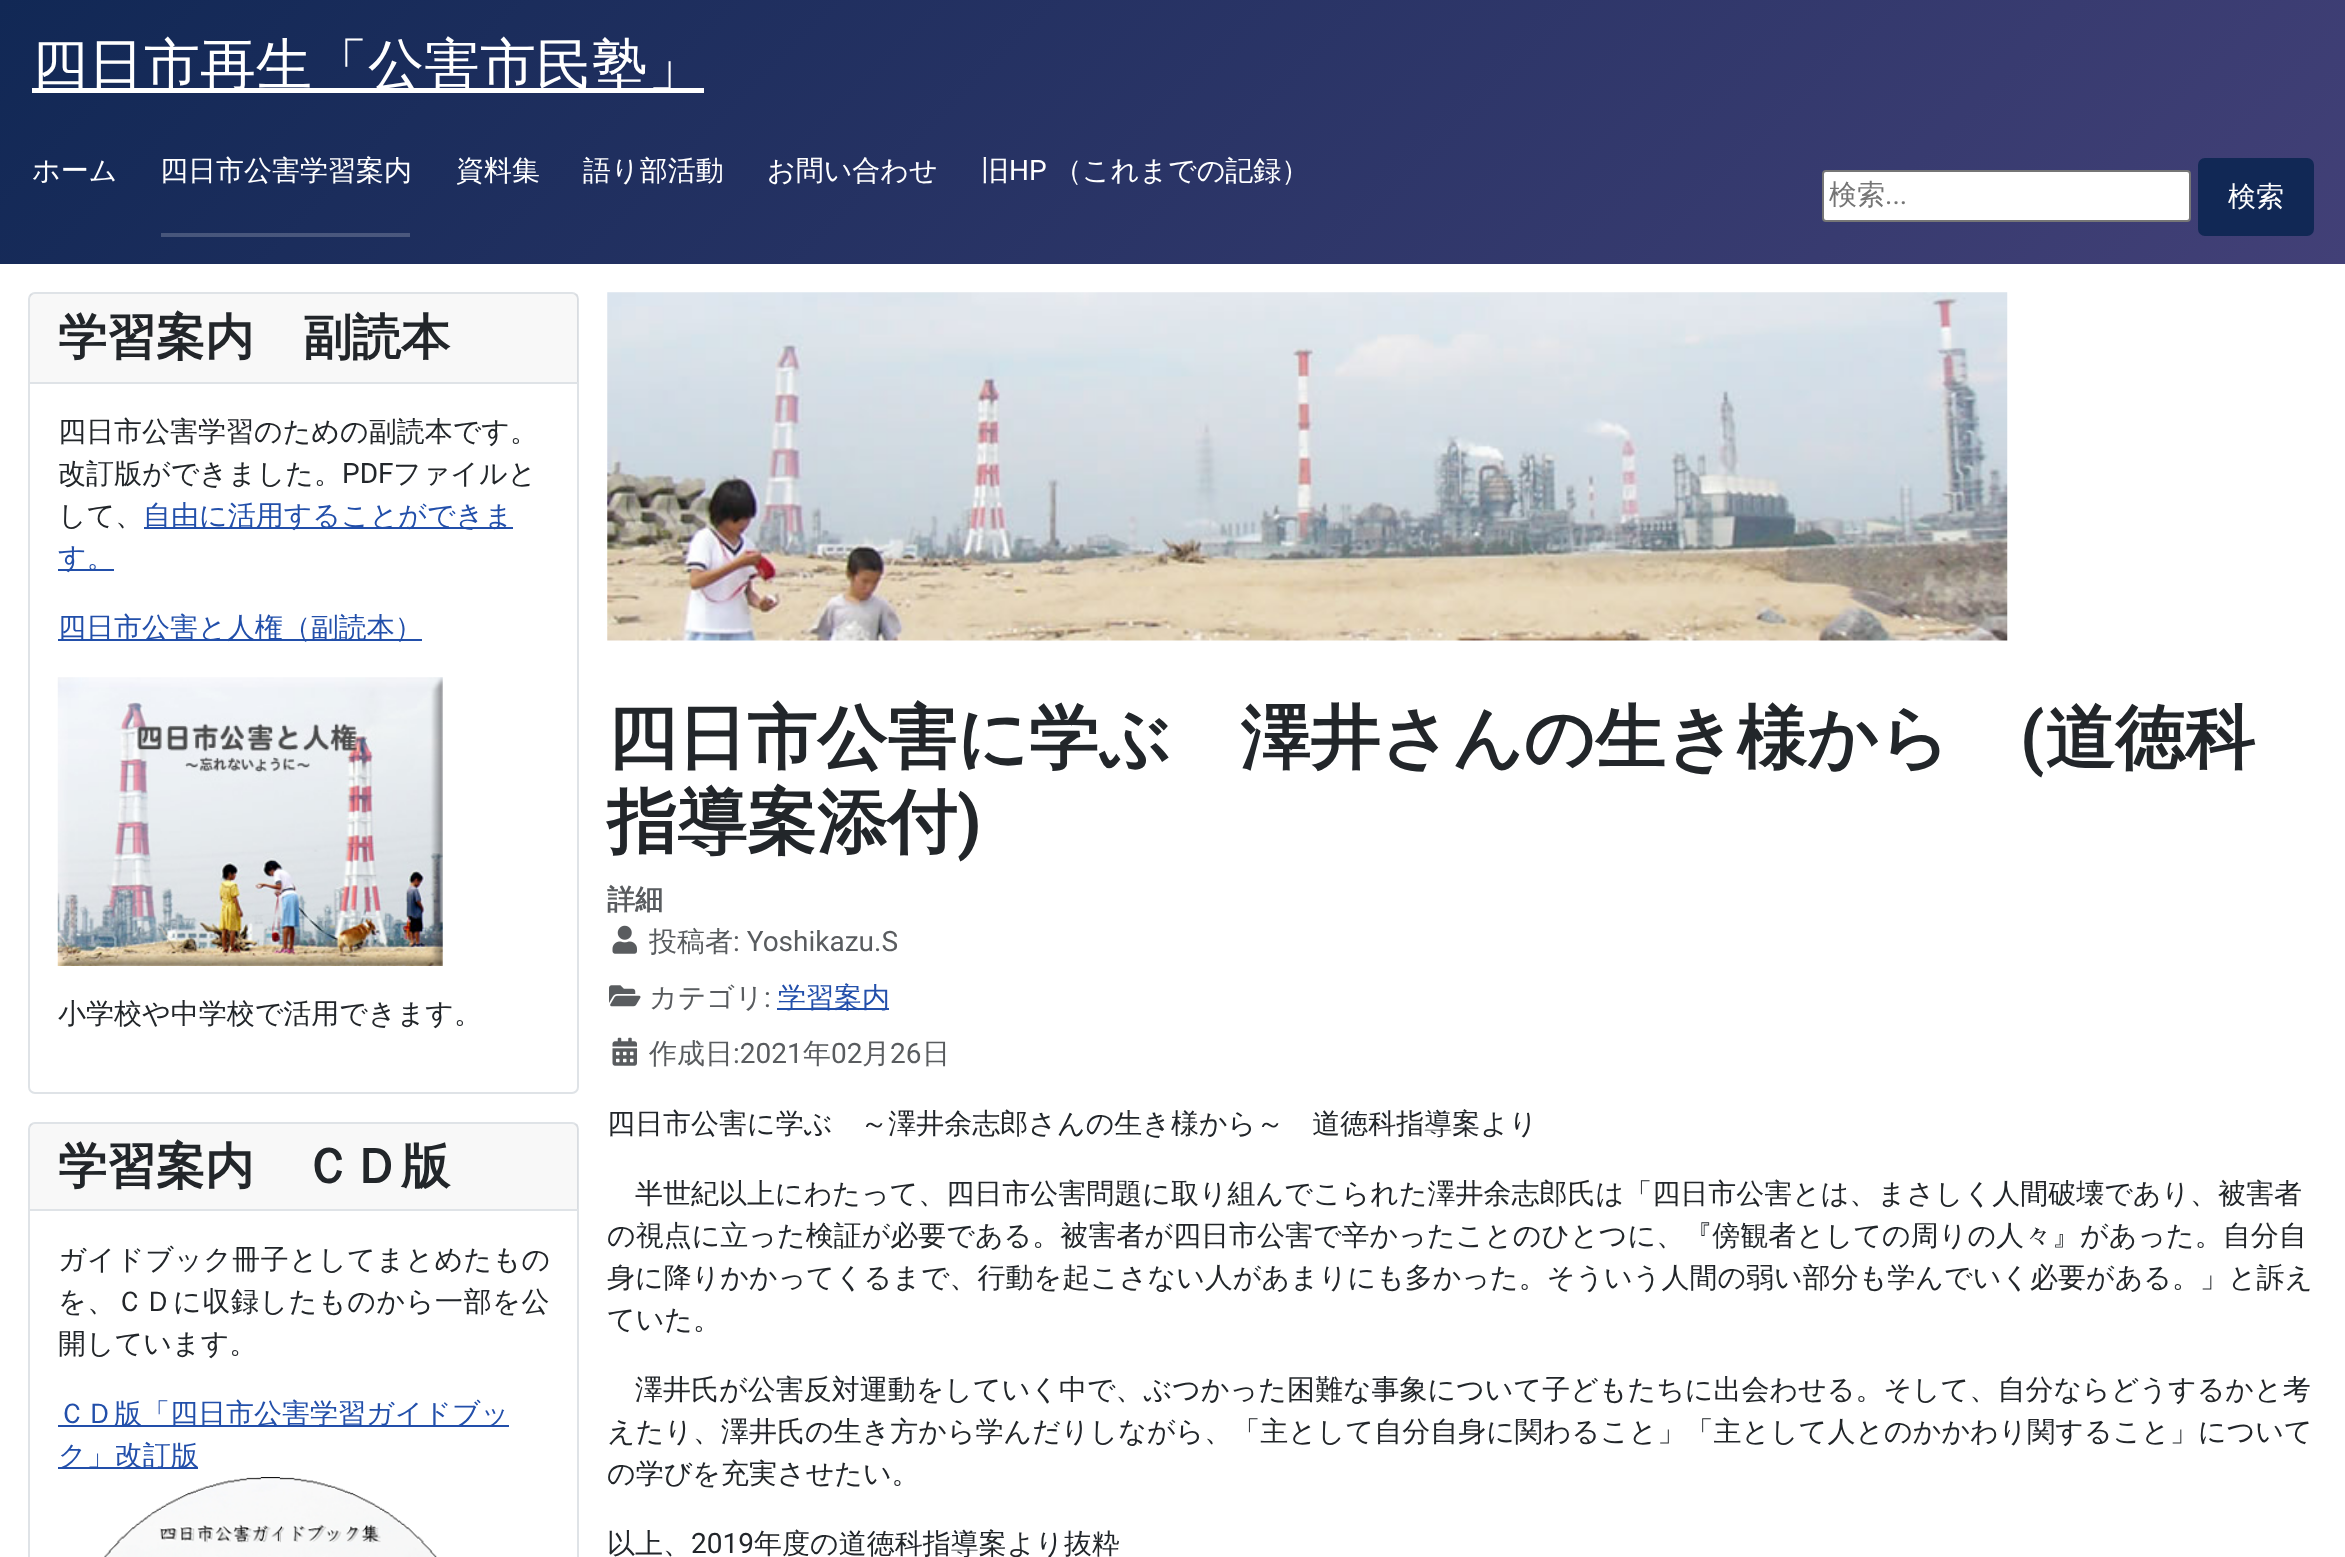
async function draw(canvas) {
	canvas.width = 2345;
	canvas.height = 1557;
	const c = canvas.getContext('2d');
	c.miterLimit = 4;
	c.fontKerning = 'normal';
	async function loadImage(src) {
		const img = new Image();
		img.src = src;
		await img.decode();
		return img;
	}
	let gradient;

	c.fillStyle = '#fff';
	c.fillRect(0, 0, 2345, 1557);
	gradient = c.createLinearGradient(520, -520, 1825, 784);
	gradient.addColorStop(0, '#112855');
	gradient.addColorStop(1, '#424077');
	c.fillStyle = gradient;
	c.fillRect(0, 0, 2345, 264);
	gradient = c.createLinearGradient(520, -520, 1825, 784);
	gradient.addColorStop(0, '#415377');
	gradient.addColorStop(1, '#686692');
	c.fillStyle = gradient;
	c.fillRect(161, 233, 249, 4);
	c.fillStyle = '#fff';
	c.fillRect(32, 88, 672, 5);
	c.font = '500 56px WenQuanYi Zen Hei';
	c.fillText('四日市再生「公害市民塾」', 32, 84);
	c.font = '500 28px WenQuanYi Zen Hei';
	for (const [text, x, y] of [
		['ホーム', 32, 180],
		['四日市公害学習案内', 160, 180],
		['資料集', 456, 180],
		['語り部活動', 583, 180],
		['お問い合わせ', 767, 180],
		['旧', 981, 180],
	]) {
		c.fillText(text, x, y);
	}
	c.font = '28px Roboto';
	c.fillText('HP', 1009, 180);
	c.font = '500 28px WenQuanYi Zen Hei';
	c.fillText('（これまでの記録）', 1054, 180);
	c.beginPath();
	c.roundRect(1823, 171, 367, 50, 3);
	c.fill();
	c.strokeStyle = '#767676';
	c.lineWidth = 2;
	c.stroke();
	c.fillStyle = '#757575';
	c.fillText('検索', 1829, 204);
	c.font = '28px Roboto';
	c.fillText('...', 1885, 204);
	c.fillStyle = '#112855';
	c.beginPath();
	c.roundRect(2199, 159, 114, 76, 6);
	c.fill();
	c.strokeStyle = '#112855';
	c.stroke();
	c.font = '500 28px WenQuanYi Zen Hei';
	c.fillStyle = '#fff';
	c.fillText('検索', 2228, 206);
	c.beginPath();
	c.roundRect(29, 293, 549, 800, 6);
	c.strokeStyle = '#dfe3e7';
	c.stroke();
	c.fillStyle = '#22262a08';
	c.fillRect(30, 294, 548, 88);
	c.fillStyle = '#dfe3e7';
	c.fillRect(30, 382, 548, 2);
	c.font = 'bold 49px WenQuanYi Zen Hei';
	c.fillStyle = '#22262a';
	c.fillText('学習案内　副読本', 58, 354);
	c.font = '500 28px WenQuanYi Zen Hei';
	c.fillText('四日市公害学習のための副読本です。', 58, 441);
	c.fillText('改訂版ができました。', 58, 483);
	c.font = '28px Roboto';
	c.fillText('PDF', 342, 483);
	c.font = '500 28px WenQuanYi Zen Hei';
	c.fillText('ファイルと', 393, 483);
	c.fillText('して、', 58, 525);
	c.fillStyle = '#224faa';
	c.fillRect(144, 527, 369, 2);
	c.fillText('自由に活用することができま', 143, 525);
	c.fillRect(58, 569, 56, 2);
	c.fillText('す。', 58, 567);
	c.fillRect(58, 639, 364, 2);
	c.fillText('四日市公害と人権（副読本）', 58, 637);
	c.drawImage(await loadImage('img1.png'), 57, 677, 386, 289);
	c.fillStyle = '#22262a';
	c.fillText('小学校や中学校で活用できます。', 58, 1023);
	c.beginPath();
	c.roundRect(29, 1123, 549, 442, 6);
	c.stroke();
	c.fillStyle = '#22262a08';
	c.fillRect(30, 1124, 548, 85);
	c.fillStyle = '#dfe3e7';
	c.fillRect(30, 1209, 548, 2);
	c.font = 'bold 49px WenQuanYi Zen Hei';
	c.fillStyle = '#22262a';
	c.fillText('学習案内　ＣＤ版', 58, 1183);
	c.letterSpacing = '0.4px';
	c.font = '500 28px WenQuanYi Zen Hei';
	c.fillText('ガイドブック冊子としてまとめたもの', 58, 1269);
	c.letterSpacing = '0.6px';
	c.fillText('を、ＣＤに収録したものから一部を公', 58, 1311);
	c.letterSpacing = '0px';
	c.fillText('開しています。', 58, 1353);
	c.fillStyle = '#224faa';
	c.fillRect(58, 1425, 451, 2);
	c.fillText('ＣＤ版「四日市公害学習ガイドブッ', 58, 1423);
	c.fillRect(58, 1467, 140, 2);
	c.fillText('ク」改訂版', 58, 1465);
	c.drawImage(await loadImage('img2.png'), 104, 1477, 333, 80);
	c.drawImage(await loadImage('img3.png'), 607, 292, 1401, 349);
	c.font = 'bold 70px WenQuanYi Zen Hei';
	c.fillStyle = '#22262a';
	c.fillText('四日市公害に学ぶ　澤井さんの生き様から', 607, 762);
	c.font = 'bold 70px Roboto';
	c.fillText('(', 2020, 762);
	c.font = 'bold 70px WenQuanYi Zen Hei';
	c.fillText('道徳科', 2045, 762);
	c.fillText('指導案添付', 607, 846);
	c.font = 'bold 70px Roboto';
	c.fillText(')', 957, 846);
	c.font = 'bold 28px WenQuanYi Zen Hei';
	c.fillStyle = '#595c5f';
	c.fillText('詳細', 607, 909);
	c.drawImage(await loadImage('img4.png'), 612, 925, 25, 29);
	c.font = '500 28px WenQuanYi Zen Hei';
	c.fillText('投稿者', 649, 951);
	c.font = '28px Roboto';
	c.fillText(': Yoshikazu.S', 733, 951);
	c.drawImage(await loadImage('img5.png'), 609, 985, 32, 22);
	c.font = '500 28px WenQuanYi Zen Hei';
	c.fillText('カテゴリ', 649, 1007);
	c.font = '28px Roboto';
	c.fillText(':', 764, 1007);
	c.fillStyle = '#224faa';
	c.fillRect(777, 1008, 112, 2);
	c.font = '500 28px WenQuanYi Zen Hei';
	c.fillText('学習案内', 778, 1007);
	c.drawImage(await loadImage('img6.png'), 612, 1037, 25, 29);
	c.fillStyle = '#595c5f';
	c.fillText('作成日', 649, 1063);
	c.font = '28px Roboto';
	c.fillText(':2021', 733, 1063);
	c.font = '500 28px WenQuanYi Zen Hei';
	c.fillText('年', 803, 1063);
	c.font = '28px Roboto';
	c.fillText('02', 831, 1063);
	c.font = '500 28px WenQuanYi Zen Hei';
	c.fillText('月', 862, 1063);
	c.font = '28px Roboto';
	c.fillText('26', 890, 1063);
	c.font = '500 28px WenQuanYi Zen Hei';
	c.fillText('日', 922, 1063);
	c.fillStyle = '#22262a';
	for (const [text, x, y] of [
		['四日市公害に学ぶ　～澤井余志郎さんの生き様から～　道徳科指導案より', 607, 1133],
		['半世紀以上にわたって、四日市公害問題に取り組んでこられた澤井余志郎氏は「四日市公害とは、まさしく人間破壊であり、被害者', 635, 1203],
		['の視点に立った検証が必要である。被害者が四日市公害で辛かったことのひとつに、『傍観者としての周りの人々』があった。自分自', 607, 1245],
		['身に降りかかってくるまで、行動を起こさない人があまりにも多かった。そういう人間の弱い部分も学んでいく必要がある。」と訴え', 607, 1287],
		['ていた。', 607, 1329],
		['澤井氏が公害反対運動をしていく中で、ぶつかった困難な事象について子どもたちに出会わせる。そして、自分ならどうするかと考', 635, 1399],
		['えたり、澤井氏の生き方から学んだりしながら、「主として自分自身に関わること」「主として人とのかかわり関すること」について', 607, 1441],
		['の学びを充実させたい。', 607, 1483],
		['以上、', 607, 1553],
	]) {
		c.fillText(text, x, y);
	}
	c.font = '28px Roboto';
	c.fillText('2019', 691, 1553);
	c.font = '500 28px WenQuanYi Zen Hei';
	c.fillText('年度の道徳科指導案より抜粋', 754, 1553);
}

draw(document.querySelector('canvas'));
